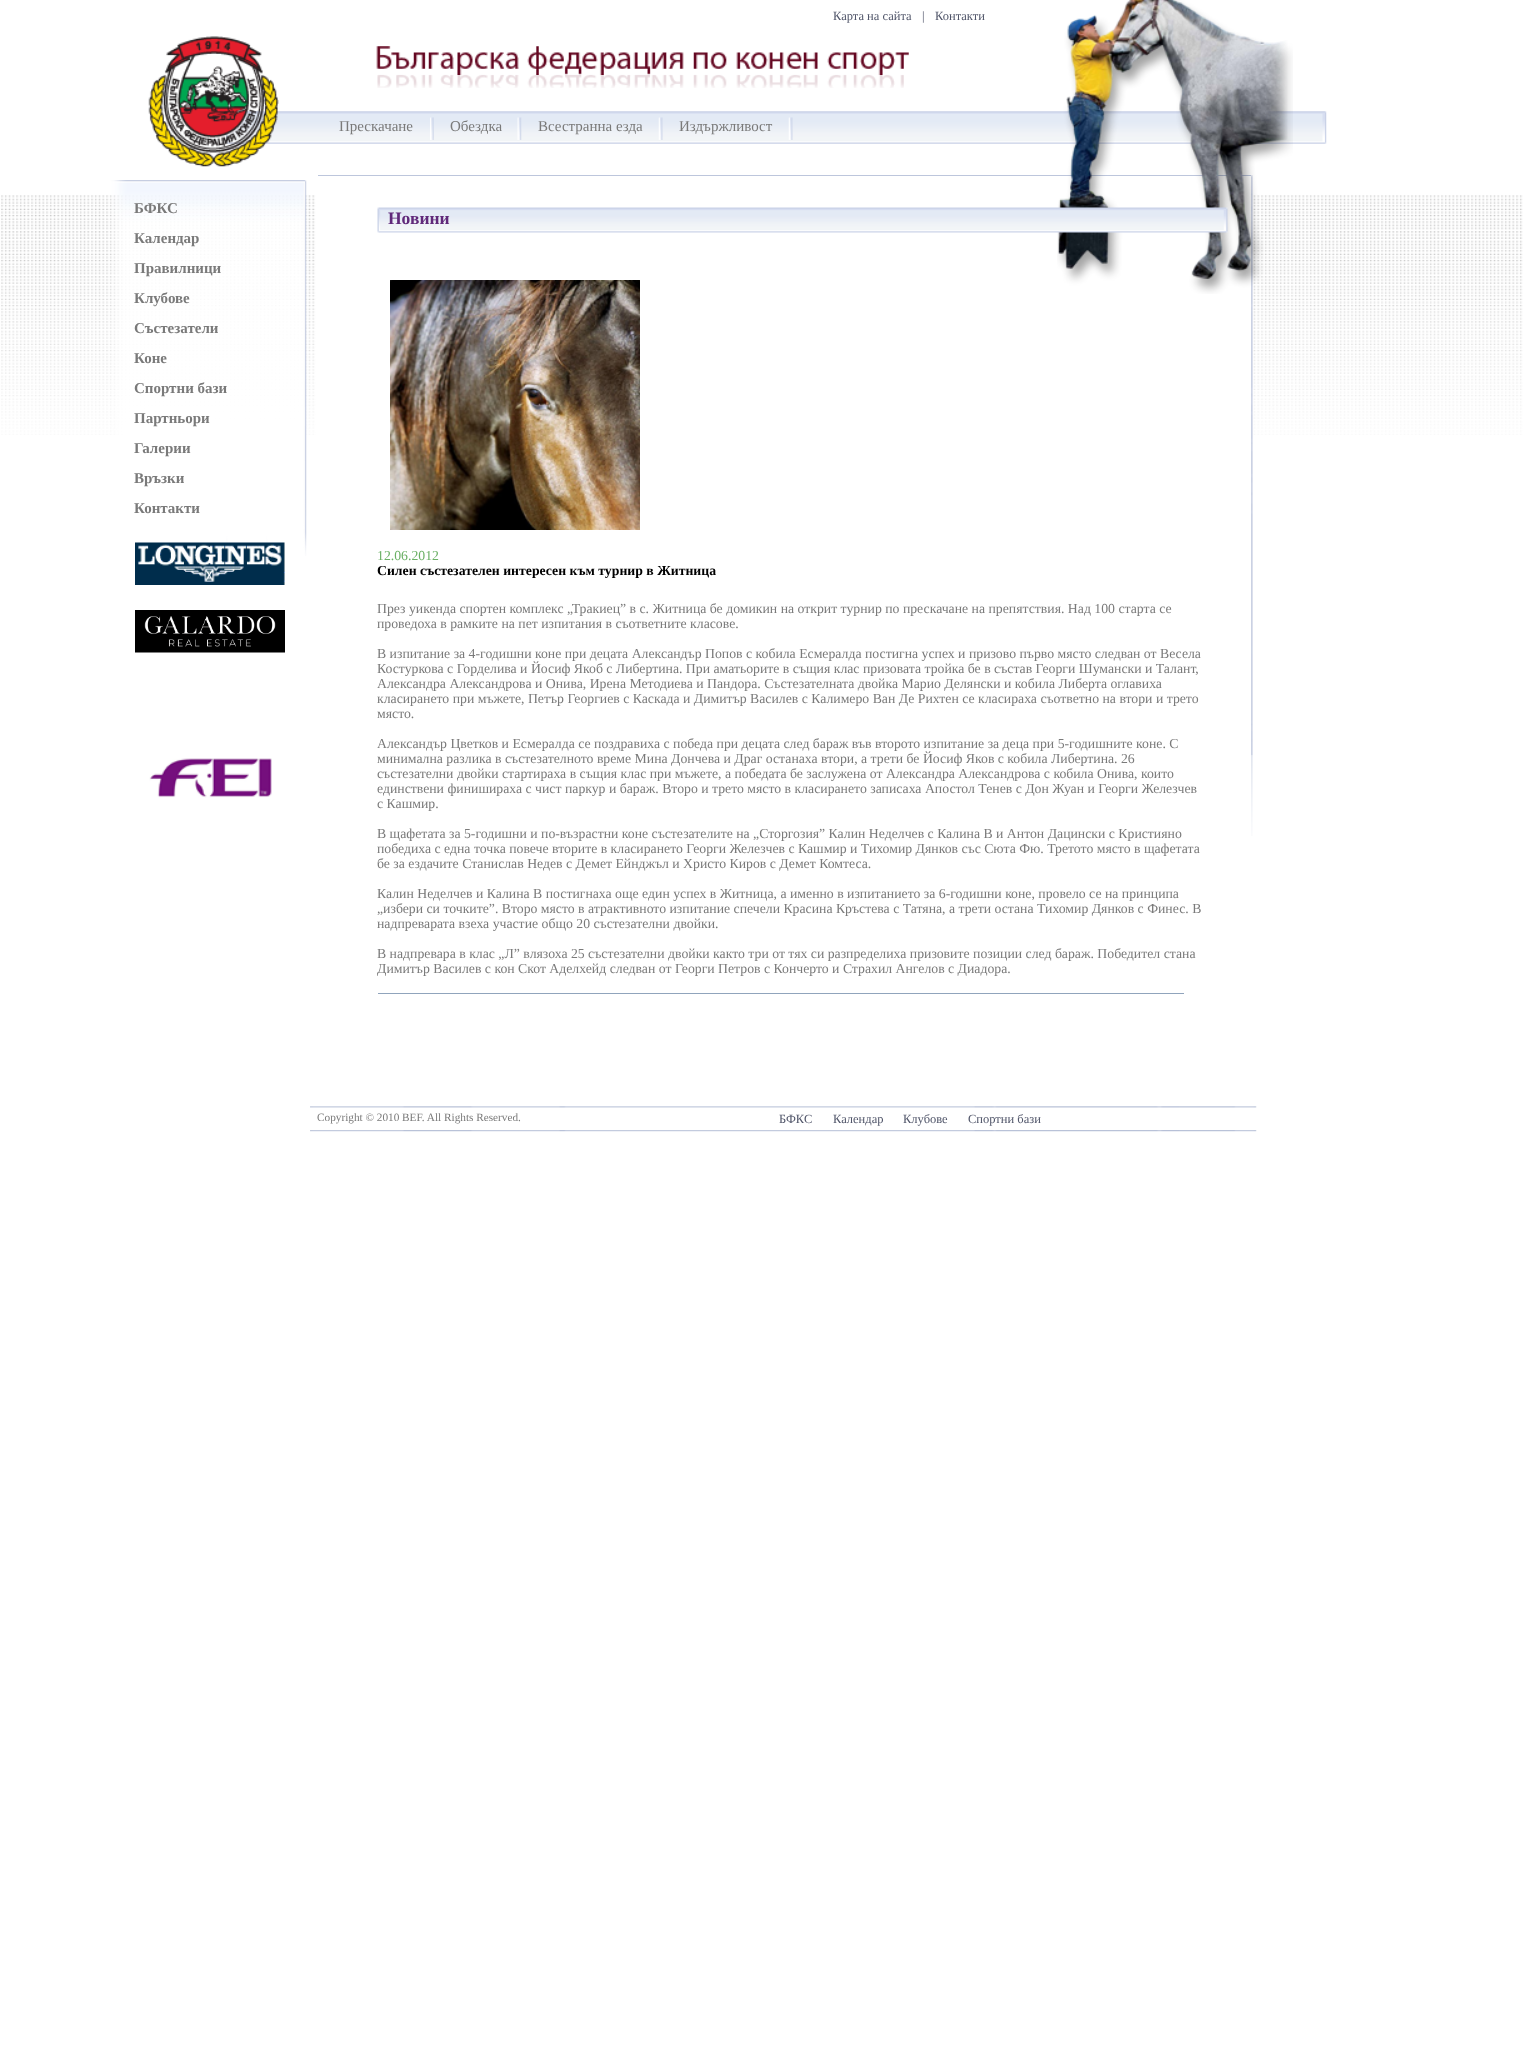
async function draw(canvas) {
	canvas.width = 1523;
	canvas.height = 2062;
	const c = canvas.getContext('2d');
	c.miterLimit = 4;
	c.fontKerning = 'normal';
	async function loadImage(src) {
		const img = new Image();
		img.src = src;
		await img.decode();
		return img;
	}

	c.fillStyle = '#fff';
	c.fillRect(0, 0, 1523, 2062);
	c.drawImage(await loadImage('img1.png'), 1, 195, 1522, 240);
	c.font = '12.5px Liberation Serif';
	c.fillStyle = '#505569';
	for (const [text, x, y] of [
		['Карта на сайта', 833, 20],
		['|', 922, 20],
		['Контакти', 935, 20],
	]) {
		c.fillText(text, x, y);
	}
	c.drawImage(await loadImage('img6.png'), 226, 111, 1101, 33);
	c.fillStyle = '#fff';
	c.fillRect(316, 195, 937, 240);
	c.fillStyle = '#bdc6dc';
	c.fillRect(318, 175, 933, 1);
	c.drawImage(await loadImage('img14.png'), 1251, 175, 2, 661);
	c.drawImage(await loadImage('img2.png'), 1057, 0, 236, 294);
	c.drawImage(await loadImage('img3.png'), 148, 36, 131, 131);
	c.drawImage(await loadImage('img4.png'), 376, 46, 533, 29);
	c.drawImage(await loadImage('img5.png'), 377, 70, 527, 18);
	c.font = '15px Liberation Serif';
	c.fillStyle = '#7a7a7a';
	c.fillText('Прескачане', 339, 131);
	c.drawImage(await loadImage('img7.png'), 430, 117, 4, 23);
	c.fillText('Обездка', 450, 131);
	c.drawImage(await loadImage('img8.png'), 517, 117, 5, 23);
	c.fillText('Всестранна езда', 538, 131);
	c.drawImage(await loadImage('img9.png'), 658, 117, 5, 23);
	c.fillText('Издържливост', 679, 131);
	c.drawImage(await loadImage('img9.png'), 788, 117, 5, 23);
	c.drawImage(await loadImage('img10.png'), 110, 180, 197, 376);
	c.font = 'bold 15px Liberation Serif';
	for (const [text, x, y] of [
		['БФКС', 134, 213],
		['Календар', 134, 243],
		['Правилници', 134, 273],
		['Клубове', 134, 303],
		['Състезатели', 134, 333],
		['Коне', 134, 363],
		['Спортни бази', 134, 393],
		['Партньори', 134, 423],
		['Галерии', 134, 453],
		['Връзки', 134, 483],
		['Контакти', 134, 513],
	]) {
		c.fillText(text, x, y);
	}
	c.drawImage(await loadImage('img11.png'), 135, 542, 150, 43);
	c.drawImage(await loadImage('img12.png'), 135, 610, 150, 43);
	c.drawImage(await loadImage('img13.png'), 149, 758, 123, 40);
	c.drawImage(await loadImage('img15.png'), 377, 207, 851, 26);
	c.font = 'bold 17.5px Liberation Serif';
	c.fillStyle = '#60297a';
	c.fillText('Новини', 388, 224);
	c.fillStyle = '#90a4bc';
	c.fillRect(378, 993, 806, 1);
	c.drawImage(await loadImage('img16.png'), 390, 280, 250, 250);
	c.font = '13.75px Liberation Serif';
	c.fillStyle = '#6bb065';
	c.fillText('12.06.2012', 377, 560);
	c.font = 'bold 13.75px Liberation Serif';
	c.fillStyle = '#000';
	c.fillText('Силен състезателен интересен към турнир в Житница', 377, 575);
	c.font = '13.75px Liberation Serif';
	c.fillStyle = '#7a7a7a';
	for (const [text, x, y] of [
		['През уикенда спортен комплекс „Тракиец” в с. Житница бе домикин на открит турнир по прескачане на препятствия. Над 100 старта се', 377, 613],
		['проведоха в рамките на пет изпитания в съответните класове.', 377, 628],
		['В изпитание за 4-годишни коне при децата Александър Попов с кобила Есмералда постигна успех и призово първо място следван от Весела', 377, 658],
		['Костуркова с Горделива и Йосиф Якоб с Либертина. При аматьорите в същия клас призовата тройка бе в състав Георги Шумански и Талант,', 377, 673],
		['Александра Александрова и Онива, Ирена Методиева и Пандора. Състезателната двойка Марио Делянски и кобила Либерта оглавиха', 377, 688],
		['класирането при мъжете, Петър Георгиев с Каскада и Димитър Василев с Калимеро Ван Де Рихтен се класираха съответно на втори и трето', 377, 703],
		['място.', 377, 718],
		['Александър Цветков и Есмералда се поздравиха с победа при децата след бараж във второто изпитание за деца при 5-годишните коне. С', 377, 748],
		['минимална разлика в състезателното време Мина Дончева и Драг останаха втори, а трети бе Йосиф Яков с кобила Либертина. 26', 377, 763],
		['състезателни двойки стартираха в същия клас при мъжете, а победата бе заслужена от Александра Александрова с кобила Онива, които', 377, 778],
		['единствени финишираха с чист паркур и бараж. Второ и трето място в класирането записаха Апостол Тенев с Дон Жуан и Георги Железчев', 377, 793],
		['с Кашмир.', 377, 808],
		['В щафетата за 5-годишни и по-възрастни коне състезателите на „Сторгозия” Калин Неделчев с Калина В и Антон Дацински с Кристияно', 377, 838],
		['победиха с една точка повече вторите в класирането Георги Железчев с Кашмир и Тихомир Дянков със Сюта Фю. Третото място в щафетата', 377, 853],
		['бе за ездачите Станислав Недев с Демет Ейнджъл и Христо Киров с Демет Комтеса.', 377, 868],
		['Калин Неделчев и Калина В постигнаха още един успех в Житница, а именно в изпитанието за 6-годишни коне, провело се на принципа', 377, 898],
		['„избери си точките”. Второ място в атрактивното изпитание спечели Красина Кръстева с Татяна, а трети остана Тихомир Дянков с Финес. В', 377, 913],
		['надпреварата взеха участие общо 20 състезателни двойки.', 377, 928],
		['В надпревара в клас „Л” влязоха 25 състезателни двойки както три от тях си разпределиха призовите позиции след бараж. Победител стана', 377, 958],
		['Димитър Василев с кон Скот Аделхейд следван от Георги Петров с Кончерто и Страхил Ангелов с Диадора.', 377, 973],
	]) {
		c.fillText(text, x, y);
	}
	c.drawImage(await loadImage('img17.png'), 310, 1106, 947, 2);
	c.font = '11.25px Liberation Serif';
	c.fillText('Copyright © 2010 BEF. All Rights Reserved.', 317, 1121);
	c.font = '12.5px Liberation Serif';
	c.fillStyle = '#505569';
	for (const [text, x, y] of [
		['БФКС', 779, 1123],
		['Календар', 833, 1123],
		['Клубове', 903, 1123],
		['Спортни бази', 968, 1123],
	]) {
		c.fillText(text, x, y);
	}
	c.drawImage(await loadImage('img18.png'), 310, 1130, 947, 2);
}

draw(document.querySelector('canvas'));
